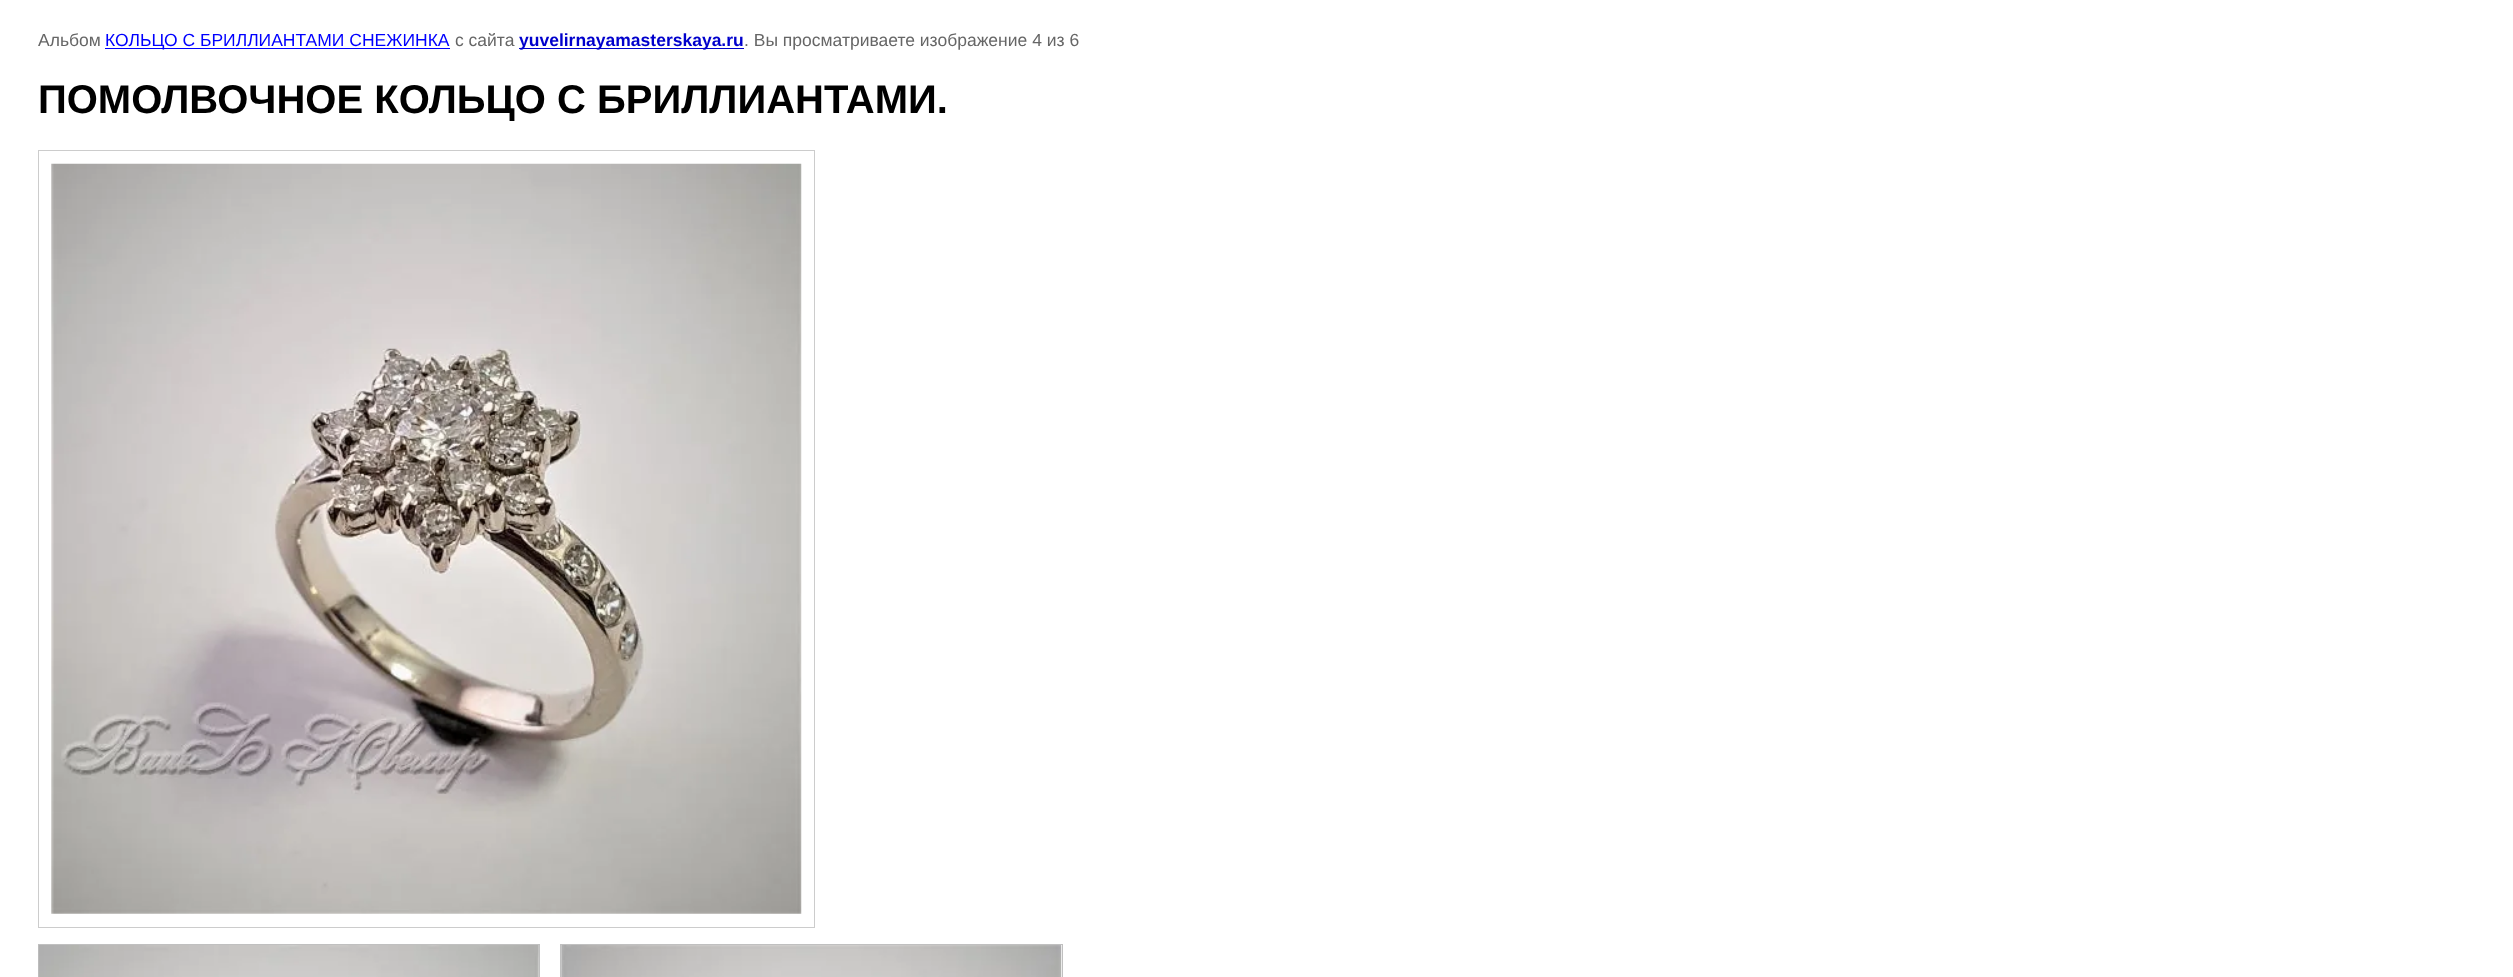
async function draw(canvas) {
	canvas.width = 2513;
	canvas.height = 977;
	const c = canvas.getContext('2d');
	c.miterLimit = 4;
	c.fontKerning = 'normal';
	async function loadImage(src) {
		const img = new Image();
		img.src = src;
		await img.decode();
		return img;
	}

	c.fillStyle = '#fff';
	c.fillRect(0, 0, 2513, 977);
	c.font = '17.5px Liberation Sans';
	c.fillStyle = '#666';
	c.fillText('Альбом', 38, 46);
	c.fillStyle = '#00f';
	c.fillRect(105, 48, 345, 1);
	c.fillText('КОЛЬЦО С БРИЛЛИАНТАМИ СНЕЖИНКА', 105, 46);
	c.fillStyle = '#666';
	c.fillText('с сайта', 455, 46);
	c.fillStyle = '#00c';
	c.fillRect(519, 48, 225, 1);
	c.font = 'bold 17.5px Liberation Sans';
	c.fillText('yuvelirnayamasterskaya.ru', 519, 46);
	c.font = '17.5px Liberation Sans';
	c.fillStyle = '#666';
	c.fillText('. Вы просматриваете изображение 4 из 6', 744, 46);
	c.font = 'bold 40px Liberation Sans';
	c.fillStyle = '#000';
	c.fillText('ПОМОЛВОЧНОЕ КОЛЬЦО С БРИЛЛИАНТАМИ.', 38, 113);
	c.strokeStyle = '#ccc';
	c.strokeRect(38.5, 150.5, 776, 777);
	c.drawImage(await loadImage('img1.png'), 51, 163, 751, 751);
	c.strokeStyle = '#c0c0c0';
	c.strokeRect(38.5, 944.5, 501, 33);
	c.drawImage(await loadImage('img2.png'), 38, 945, 501, 32);
	c.strokeRect(560.5, 944.5, 502, 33);
	c.drawImage(await loadImage('img3.png'), 561, 945, 501, 32);
}

draw(document.querySelector('canvas'));
